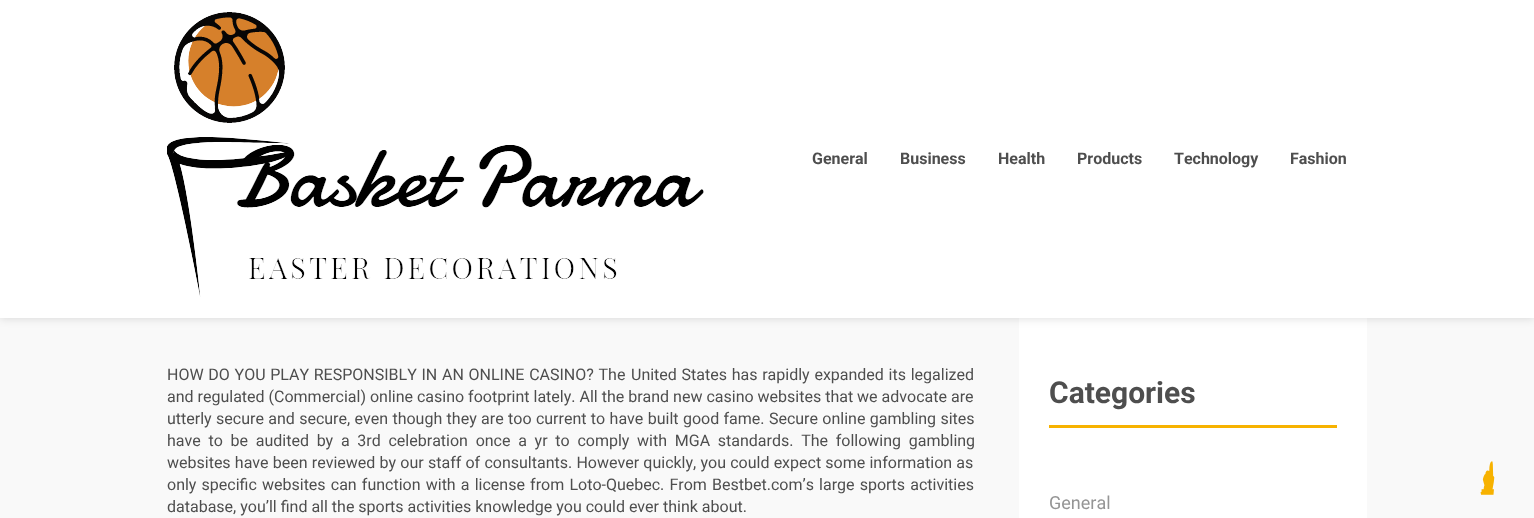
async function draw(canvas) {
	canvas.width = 1534;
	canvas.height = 518;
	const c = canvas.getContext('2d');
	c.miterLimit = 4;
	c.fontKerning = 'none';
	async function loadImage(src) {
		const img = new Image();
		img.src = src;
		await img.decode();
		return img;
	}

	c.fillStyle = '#f9f9f9';
	c.fillRect(0, 0, 1534, 518);
	c.fillStyle = '#fff';
	c.fillRect(1019, 318, 348, 200);
	c.fillStyle = '#00000026';
	c.filter = 'blur(5px)';
	c.beginPath();
	c.rect(0, 0, 1534, 318);
	c.fill();
	c.filter = 'none';
	c.fillStyle = '#fff';
	c.fillRect(0, 0, 1534, 318);
	c.drawImage(await loadImage('img1.png'), 167, 12, 537, 285);
	c.font = 'bold 16px Roboto';
	c.fillStyle = '#4e4e4e';
	for (const [text, x, y] of [
		['General', 812, 164],
		['Business', 900, 164],
		['Health', 998, 164],
		['Products', 1077, 164],
		['Technology', 1174, 164],
		['Fashion', 1290, 164],
	]) {
		c.fillText(text, x, y);
	}
	c.wordSpacing = '0.75px';
	c.font = '16px Roboto';
	c.fillText('HOW DO YOU PLAY RESPONSIBLY IN AN ONLINE CASINO? The', 167, 380);
	c.fillText('United States has rapidly expanded its legalized', 631, 380);
	c.wordSpacing = '0px';
	c.fillText('and regulated (Commercial) online casino footprint lately. All the brand new casino websites that we advocate are', 167, 402);
	c.wordSpacing = '0.4px';
	c.fillText('utterly secure and secure, even though they are too current to have built good fame. Secure online gambling sites', 167, 424);
	c.wordSpacing = '3.75px';
	c.fillText('have to be audited by a 3rd celebration once a yr to comply with MGA standards. The following gambling', 167, 446);
	c.wordSpacing = '0.25px';
	c.fillText('websites have been reviewed by our staff of consultants. However quickly, you could expect some information as', 167, 468);
	c.wordSpacing = '1.2px';
	c.fillText('only specific websites can function with a license from Loto-Quebec. From Bestbet.com’s large sports activities', 167, 490);
	c.wordSpacing = '0px';
	c.fillText('database, you’ll find all the sports activities knowledge you could ever think about.', 167, 512);
	c.font = 'bold 30px Roboto';
	c.fillText('Categories', 1049, 403);
	c.fillStyle = '#f7b200';
	c.fillRect(1049, 425, 288, 3);
	c.font = '18px Roboto';
	c.fillStyle = '#959595';
	c.fillText('General', 1049, 509);
	c.font = '50px FreeSerif';
	c.fillStyle = '#f7b200';
	c.fillText('🖠', 1478, 495);
}

draw(document.querySelector('canvas'));
